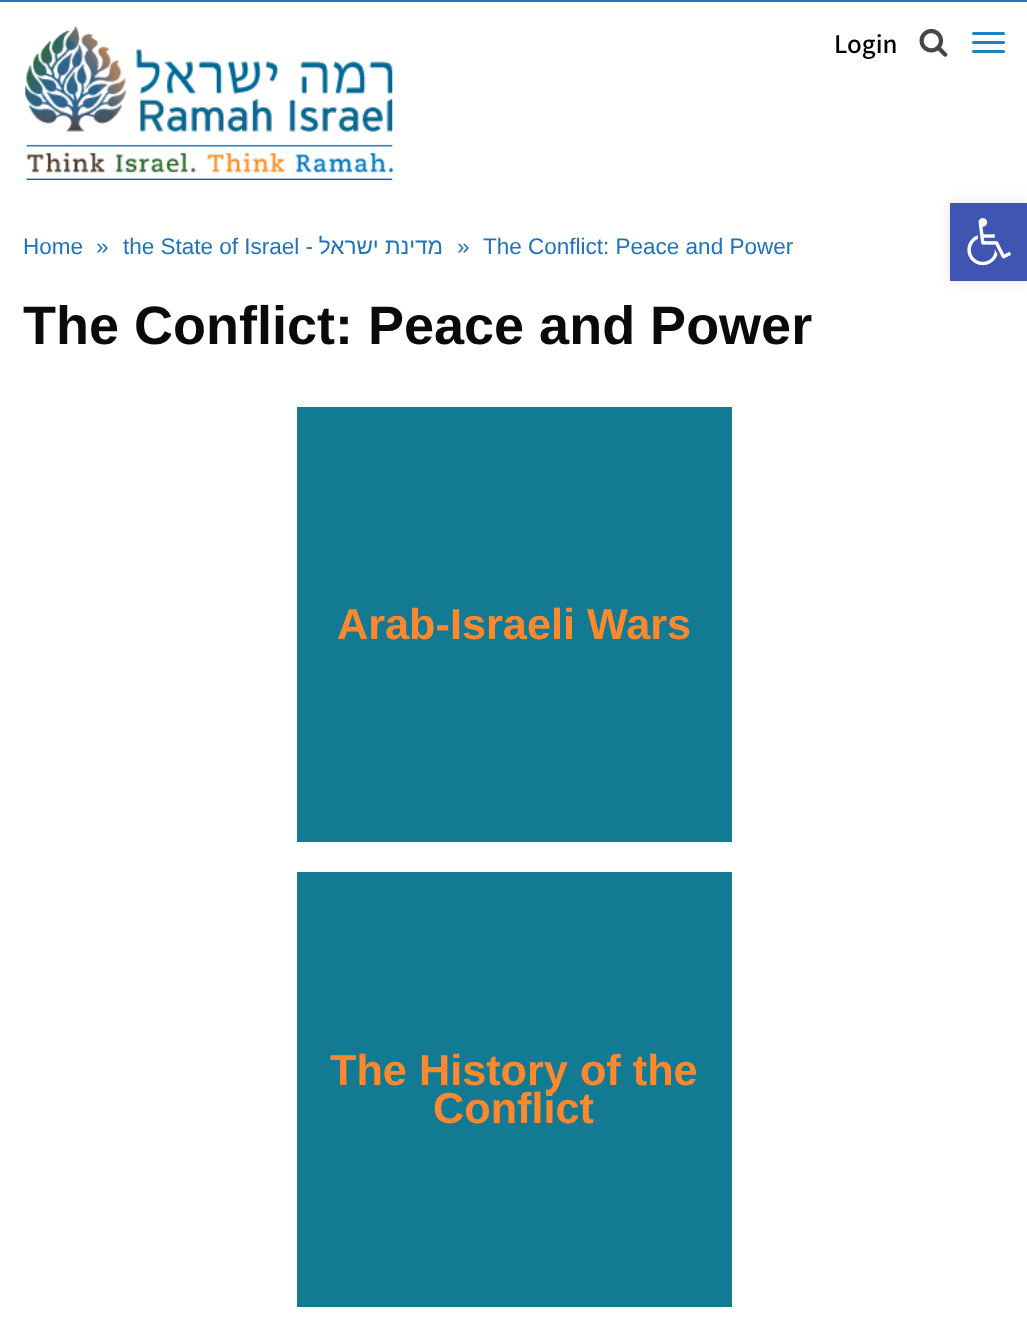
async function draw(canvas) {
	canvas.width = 1027;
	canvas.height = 1327;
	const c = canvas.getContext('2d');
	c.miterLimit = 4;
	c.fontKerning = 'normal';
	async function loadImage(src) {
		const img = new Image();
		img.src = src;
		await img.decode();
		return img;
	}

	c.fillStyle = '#fff';
	c.fillRect(0, 0, 1027, 1327);
	c.fillStyle = '#1e73be';
	c.fillRect(0, 0, 1027, 2);
	c.drawImage(await loadImage('img1.png'), 25, 26, 369, 154);
	c.font = '600 27px Assistant';
	c.fillStyle = '#000';
	c.fillText('Login', 834, 53);
	c.drawImage(await loadImage('img2.png'), 919, 28, 29, 29);
	c.fillStyle = '#1d81c4';
	c.beginPath();
	c.roundRect(972, 32, 33, 3, 1.5);
	c.fill();
	c.beginPath();
	c.roundRect(972, 41, 33, 3, 1.5);
	c.fill();
	c.beginPath();
	c.roundRect(972, 50, 33, 3, 1.5);
	c.fill();
	c.font = '22.5px Liberation Sans';
	c.fillStyle = '#1e73be';
	for (const [text, x, y] of [
		['Home', 23, 254],
		['»', 96, 254],
		['the State of Israel -', 123, 254],
	]) {
		c.fillText(text, x, y);
	}
	c.direction = 'rtl';
	c.fillText('מדינת ישראל', 443, 254);
	c.direction = 'ltr';
	c.fillText('»', 457, 254);
	c.fillText('The Conflict: Peace and Power', 483, 254);
	c.font = 'bold 54px Liberation Sans';
	c.fillStyle = '#0a0a0a';
	c.fillText('The Conflict: Peace and Power', 23, 344);
	c.fillStyle = '#137a93';
	c.fillRect(297, 407, 435, 435);
	c.font = 'bold 43.25px Liberation Sans';
	c.fillStyle = '#ff882d';
	c.fillText('Arab-Israeli Wars', 337, 639);
	c.fillStyle = '#137a93';
	c.fillRect(297, 872, 435, 435);
	c.fillStyle = '#ff882d';
	c.fillText('The History of the', 330, 1085);
	c.fillText('Conflict', 433, 1123);
	c.fillStyle = '#0000001a';
	c.filter = 'blur(7.5px)';
	c.beginPath();
	c.rect(950, 203, 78, 78);
	c.fill();
	c.filter = 'none';
	c.fillStyle = '#4054b2';
	c.fillRect(950, 203, 77, 78);
	c.drawImage(await loadImage('img3.png'), 967, 218, 44, 48);
}

draw(document.querySelector('canvas'));
